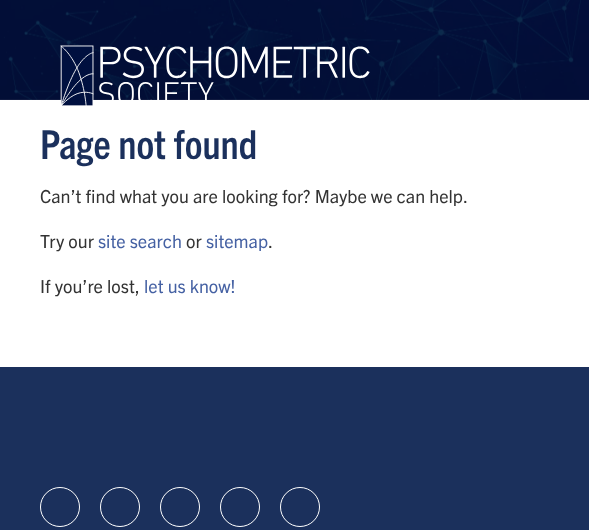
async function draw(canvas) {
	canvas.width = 589;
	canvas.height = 530;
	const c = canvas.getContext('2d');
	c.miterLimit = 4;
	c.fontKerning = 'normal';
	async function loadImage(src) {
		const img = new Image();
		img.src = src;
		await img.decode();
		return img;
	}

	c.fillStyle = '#fff';
	c.fillRect(0, 0, 589, 530);
	c.drawImage(await loadImage('img1.png'), 0, 0, 589, 100);
	c.drawImage(await loadImage('img2.png'), 60, 45, 310, 61);
	c.font = 'bold 40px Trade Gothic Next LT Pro';
	c.fillStyle = '#1b305c';
	c.fillText('Page not found', 40, 159);
	c.font = '18px Trade Gothic Next LT Pro';
	c.fillStyle = '#333';
	c.fillText('Can’t find what you are looking for? Maybe we can help.', 40, 203);
	c.fillText('Try our', 40, 248);
	c.fillStyle = '#4561a3';
	c.fillText('site search', 98, 248);
	c.fillStyle = '#333';
	c.fillText('or', 186, 248);
	c.fillStyle = '#4561a3';
	c.fillText('sitemap', 206, 248);
	c.fillStyle = '#333';
	c.fillText('.', 268, 248);
	c.fillText('If you’re lost,', 40, 293);
	c.fillStyle = '#4561a3';
	c.fillText('let us know!', 144, 293);
	c.fillStyle = '#1b305c';
	c.fillRect(0, 367, 589, 163);
	c.beginPath();
	c.arc(60, 507, 19.5, 0, 2 * Math.PI);
	c.strokeStyle = '#fff';
	c.stroke();
	c.beginPath();
	c.arc(120, 507, 19.5, 0, 2 * Math.PI);
	c.stroke();
	c.beginPath();
	c.arc(180, 507, 19.5, 0, 2 * Math.PI);
	c.stroke();
	c.beginPath();
	c.arc(240, 507, 19.5, 0, 2 * Math.PI);
	c.stroke();
	c.beginPath();
	c.arc(300, 507, 19.5, 0, 2 * Math.PI);
	c.stroke();
}

draw(document.querySelector('canvas'));
